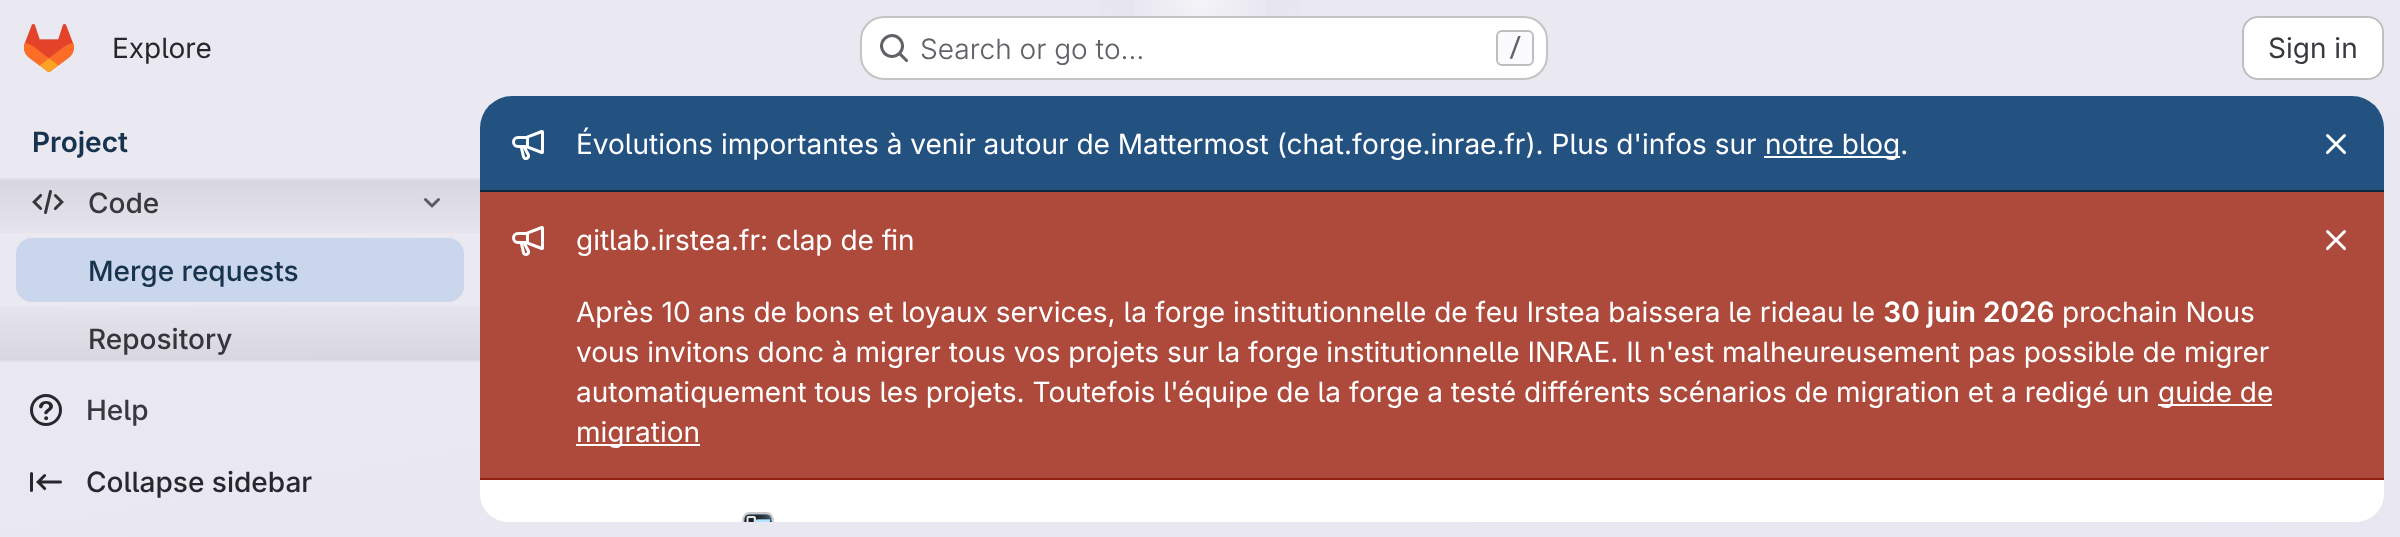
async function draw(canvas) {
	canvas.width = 2400;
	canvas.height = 537;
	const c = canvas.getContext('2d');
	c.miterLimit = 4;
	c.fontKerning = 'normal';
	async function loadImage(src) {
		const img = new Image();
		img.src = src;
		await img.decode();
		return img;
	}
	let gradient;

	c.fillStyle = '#fff';
	c.fillRect(0, 0, 2400, 537);
	gradient = c.createLinearGradient(1282, 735, 1118, -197);
	gradient.addColorStop(0, '#e8e6f0');
	gradient.addColorStop(0.7, '#eae9f2');
	c.fillStyle = gradient;
	c.fillRect(0, 0, 2400, 537);
	gradient = c.createRadialGradient(1200, 0, 0, 1200, 0, 1200);
	gradient.addColorStop(0, '#e4e2ed');
	gradient.addColorStop(0.12, '#e4e2ed00');
	c.fillStyle = gradient;
	c.beginPath();
	c.rect(1098, 0, 204, 16);
	c.save();
	c.clip();
	c.scale(1, 538 / 1200);
	c.fillRect(0, 0, 2400, 1198);
	c.restore();
	gradient = c.createRadialGradient(1200, 0, 0, 1200, 0, 1315);
	gradient.addColorStop(0, '#ffffff99');
	gradient.addColorStop(0.06, '#ffffff00');
	c.fillStyle = gradient;
	c.fillRect(1134, 0, 132, 16);
	c.drawImage(await loadImage('img1.png'), 24, 24, 50, 48);
	c.font = '28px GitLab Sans';
	c.fillStyle = '#28272d';
	c.fillText('Explore', 112, 58);
	c.fillStyle = '#fff';
	c.beginPath();
	c.roundRect(860, 16, 688, 64, 24);
	c.fill();
	c.beginPath();
	c.roundRect(861, 17, 686, 62, 23);
	c.strokeStyle = '#0505063d';
	c.lineWidth = 2;
	c.stroke();
	c.drawImage(await loadImage('img2.png'), 880, 34, 29, 29);
	c.font = '300 28px GitLab Sans';
	c.fillStyle = '#626168';
	c.fillText('Search or go to…', 920, 59);
	c.fillStyle = '#fbfafd';
	c.beginPath();
	c.roundRect(1497, 31, 36, 34, 5);
	c.fill();
	c.strokeStyle = '#bfbfc3';
	c.stroke();
	c.font = '500 24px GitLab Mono';
	c.fillStyle = '#626168';
	c.fillText('/', 1508, 56);
	c.fillStyle = '#fff';
	c.beginPath();
	c.roundRect(2243, 17, 140, 62, 15);
	c.fill();
	c.stroke();
	c.font = '28px GitLab Sans';
	c.fillStyle = '#3a383f';
	c.fillText('Sign in', 2268, 58);
	c.font = '600 28px GitLab Sans';
	c.fillStyle = '#18334e';
	c.fillText('Project', 32, 152);
	c.fillStyle = '#e1dfec';
	c.fillRect(0, 178, 480, 2);
	c.fillRect(0, 360, 480, 2);
	c.drawImage(await loadImage('img3.png'), 32, 190, 32, 24);
	c.beginPath();
	c.moveTo(438.5, 199.5);
	c.lineTo(432, 206);
	c.lineTo(425.5, 199.5);
	c.strokeStyle = '#626168';
	c.lineWidth = 3;
	c.lineCap = 'round';
	c.lineJoin = 'round';
	c.stroke();
	gradient = c.createLinearGradient(240, 180, 240, 252);
	gradient.addColorStop(0, '#05050614');
	gradient.addColorStop(1, '#05050600');
	c.fillStyle = gradient;
	c.fillRect(0, 180, 480, 53);
	c.font = '500 28px GitLab Sans';
	c.fillStyle = '#3a383f';
	c.fillText('Code', 88, 213);
	c.fillStyle = '#cad6eb';
	c.beginPath();
	c.roundRect(16, 238, 448, 64, 16);
	c.fill();
	c.fillStyle = '#18334e';
	c.fillText('Merge requests', 88, 281);
	c.fillStyle = '#3a383f';
	c.fillText('Repository', 88, 349);
	gradient = c.createLinearGradient(240, 288, 240, 360);
	gradient.addColorStop(0, '#05050600');
	gradient.addColorStop(1, '#05050614');
	c.fillStyle = gradient;
	c.fillRect(0, 307, 480, 53);
	c.drawImage(await loadImage('img4.png'), 30, 394, 32, 32);
	c.fillStyle = '#3a383f';
	c.fillText('Help', 86, 420);
	c.drawImage(await loadImage('img5.png'), 30, 472, 32, 20);
	c.fillStyle = '#28272d';
	c.fillText('Collapse sidebar', 86, 492);
	c.fillStyle = '#fff';
	c.beginPath();
	c.roundRect(480, 96, 1904, 426, 32);
	c.fill();
	c.fillStyle = '#235180';
	c.beginPath();
	c.roundRect(480, 96, 1904, 96, [32, 32, 0, 0]);
	c.fill();
	c.fillStyle = '#0b2640';
	c.fillRect(480, 190, 1904, 2);
	c.drawImage(await loadImage('img6.png'), 512, 130, 32, 30);
	c.font = '28px GitLab Sans';
	c.fillStyle = '#fff';
	c.fillText('Évolutions importantes à venir autour de Mattermost (chat.forge.inrae.fr). Plus d\'infos sur', 576, 154);
	c.fillRect(1764, 156, 136, 2);
	c.fillText('notre blog.', 1765, 154);
	c.drawImage(await loadImage('img7.png'), 2326, 134, 20, 21);
	c.fillStyle = '#ad4a3b';
	c.fillRect(480, 192, 1904, 286);
	c.fillStyle = '#8f2110';
	c.fillRect(480, 478, 1904, 2);
	c.drawImage(await loadImage('img8.png'), 512, 226, 32, 30);
	c.fillStyle = '#fff';
	c.fillText('gitlab.irstea.fr: clap de fin', 576, 250);
	c.fillText('Après 10 ans de bons et loyaux services, la forge institutionnelle de feu Irstea baissera le rideau le', 576, 322);
	c.font = '600 28px GitLab Sans';
	c.fillText('30 juin 2026', 1883, 322);
	c.font = '28px GitLab Sans';
	for (const [text, x, y] of [
		['prochain Nous', 2062, 322],
		['vous invitons donc à migrer tous vos projets sur la forge institutionnelle INRAE. Il n\'est malheureusement pas possible de migrer', 576, 362],
		['automatiquement tous les projets. Toutefois l\'équipe de la forge a testé différents scénarios de migration et a redigé un', 576, 402],
	]) {
		c.fillText(text, x, y);
	}
	c.fillRect(2158, 404, 114, 2);
	c.fillText('guide de', 2158, 402);
	c.fillRect(576, 444, 124, 2);
	c.fillText('migration', 576, 442);
	c.drawImage(await loadImage('img9.png'), 2326, 230, 20, 21);
	c.beginPath();
	c.roundRect(480, 480, 1904, 42, [16, 16, 32, 32]);
	c.fill();
	c.fillStyle = '#dcdcde';
	c.beginPath();
	c.moveTo(750, 512);
	c.bezierCurveTo(744, 512, 742, 517, 742, 522);
	c.lineTo(744, 522);
	c.bezierCurveTo(744, 512.5, 750.5, 514, 758, 514);
	c.bezierCurveTo(765.5, 514, 772, 512.5, 772, 522);
	c.lineTo(774, 522);
	c.bezierCurveTo(774, 517, 772, 512, 766, 512);
	c.closePath();
	c.fill();
	c.drawImage(await loadImage('img10.png'), 744, 514, 28, 8);
	c.fillStyle = '#05050614';
	c.beginPath();
	c.moveTo(750, 512);
	c.bezierCurveTo(744, 512, 742, 517, 742, 522);
	c.lineTo(744, 522);
	c.bezierCurveTo(744, 512.5, 750.5, 514, 758, 514);
	c.bezierCurveTo(765.5, 514, 772, 512.5, 772, 522);
	c.lineTo(774, 522);
	c.bezierCurveTo(774, 517, 772, 512, 766, 512);
	c.closePath();
	c.fill();
}

draw(document.querySelector('canvas'));
